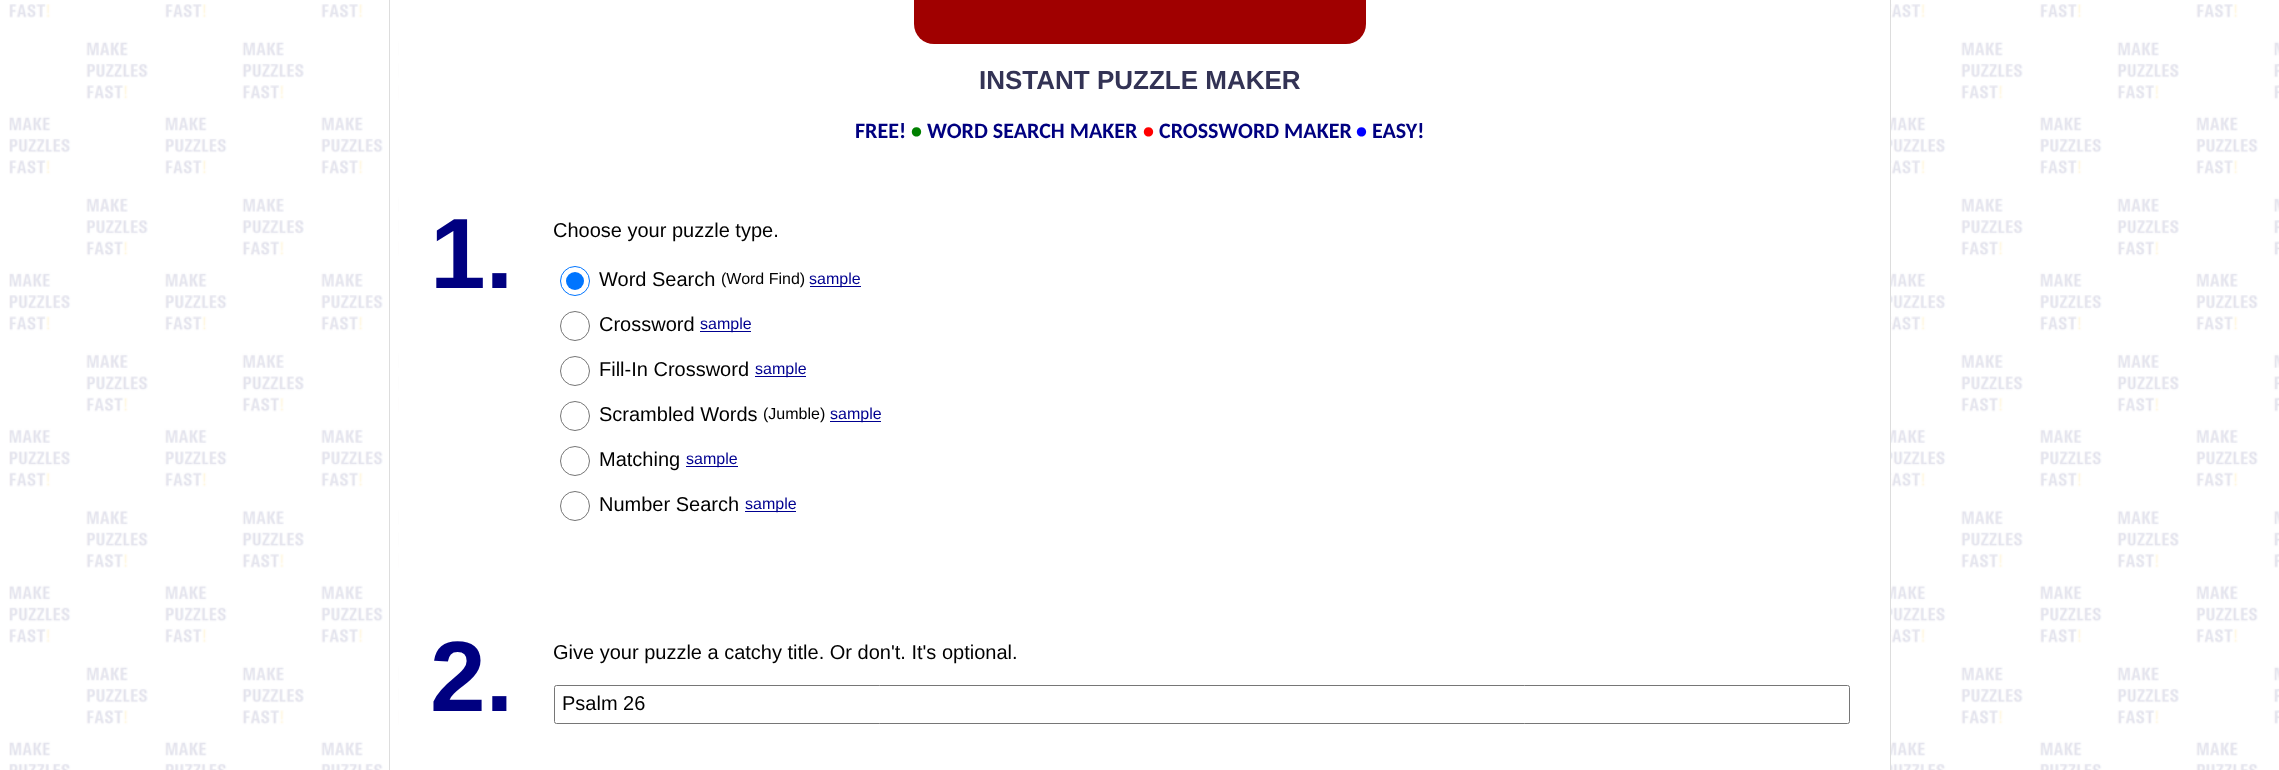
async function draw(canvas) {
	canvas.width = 2279;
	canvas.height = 770;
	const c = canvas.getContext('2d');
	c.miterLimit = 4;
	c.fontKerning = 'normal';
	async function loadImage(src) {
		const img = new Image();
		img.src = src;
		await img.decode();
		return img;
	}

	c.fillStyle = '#fff';
	c.fillRect(0, 0, 2279, 770);
	c.drawImage(await loadImage('img1.png'), 9, 4, 2270, 766);
	c.fillRect(399, 4, 1491, 766);
	c.strokeStyle = '#ddd';
	c.strokeRect(389.5, -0.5, 1501, 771);
	c.fillStyle = '#a00000';
	c.beginPath();
	c.roundRect(914, -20, 452, 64, 20);
	c.fill();
	c.font = 'bold 26px Liberation Sans';
	c.fillStyle = '#335';
	c.fillText('INSTANT PUZZLE MAKER', 979, 89);
	c.font = 'bold 22px Carlito';
	c.fillStyle = '#000080';
	c.fillText('FREE!', 855, 138);
	c.fillStyle = '#008000';
	c.fillText('•', 911, 138);
	c.fillStyle = '#000080';
	c.fillText('WORD SEARCH MAKER', 927, 138);
	c.fillStyle = '#f00';
	c.fillText('•', 1143, 138);
	c.fillStyle = '#000080';
	c.fillText('CROSSWORD MAKER', 1159, 138);
	c.fillStyle = '#00f';
	c.fillText('•', 1356, 138);
	c.fillStyle = '#000080';
	c.fillText('EASY!', 1372, 138);
	c.font = 'bold 100px Liberation Sans';
	c.fillText('1.', 430, 288);
	c.font = '20px Liberation Sans';
	c.fillStyle = '#000';
	c.fillText('Choose your puzzle type.', 553, 237);
	c.beginPath();
	c.arc(575, 281, 14.5, 0, 2 * Math.PI);
	c.strokeStyle = '#0075ff';
	c.stroke();
	c.fillStyle = '#0075ff';
	c.beginPath();
	c.arc(575, 281, 9, 0, 2 * Math.PI);
	c.fill();
	c.fillStyle = '#000';
	c.fillText('Word Search', 599, 286);
	c.font = '16px Liberation Sans';
	c.fillText('(Word Find)', 721, 284);
	c.fillStyle = '#000090';
	c.fillRect(810, 286, 51, 1);
	c.fillText('sample', 809, 284);
	c.beginPath();
	c.arc(575, 326, 14.5, 0, 2 * Math.PI);
	c.strokeStyle = '#767676';
	c.stroke();
	c.font = '20px Liberation Sans';
	c.fillStyle = '#000';
	c.fillText('Crossword', 599, 331);
	c.fillStyle = '#000090';
	c.fillRect(700, 331, 51, 1);
	c.font = '16px Liberation Sans';
	c.fillText('sample', 700, 329);
	c.beginPath();
	c.arc(575, 371, 14.5, 0, 2 * Math.PI);
	c.stroke();
	c.font = '20px Liberation Sans';
	c.fillStyle = '#000';
	c.fillText('Fill-In Crossword', 599, 376);
	c.fillStyle = '#000090';
	c.fillRect(755, 376, 51, 1);
	c.font = '16px Liberation Sans';
	c.fillText('sample', 755, 374);
	c.beginPath();
	c.arc(575, 416, 14.5, 0, 2 * Math.PI);
	c.stroke();
	c.font = '20px Liberation Sans';
	c.fillStyle = '#000';
	c.fillText('Scrambled Words', 599, 421);
	c.font = '16px Liberation Sans';
	c.fillText('(Jumble)', 763, 419);
	c.fillStyle = '#000090';
	c.fillRect(830, 421, 51, 1);
	c.fillText('sample', 830, 419);
	c.beginPath();
	c.arc(575, 461, 14.5, 0, 2 * Math.PI);
	c.stroke();
	c.font = '20px Liberation Sans';
	c.fillStyle = '#000';
	c.fillText('Matching', 599, 466);
	c.fillStyle = '#000090';
	c.fillRect(686, 466, 52, 1);
	c.font = '16px Liberation Sans';
	c.fillText('sample', 686, 464);
	c.beginPath();
	c.arc(575, 506, 14.5, 0, 2 * Math.PI);
	c.stroke();
	c.font = '20px Liberation Sans';
	c.fillStyle = '#000';
	c.fillText('Number Search', 599, 511);
	c.fillStyle = '#000090';
	c.fillRect(745, 511, 51, 1);
	c.font = '16px Liberation Sans';
	c.fillText('sample', 745, 509);
	c.font = 'bold 100px Liberation Sans';
	c.fillStyle = '#000080';
	c.fillText('2.', 430, 711);
	c.font = '20px Liberation Sans';
	c.fillStyle = '#000';
	c.fillText('Give your puzzle a catchy title. Or don\'t. It\'s optional.', 553, 659);
	c.beginPath();
	c.roundRect(554.5, 685.5, 1295, 38, 2);
	c.stroke();
	c.fillText('Psalm 26', 562, 710);
}

draw(document.querySelector('canvas'));
